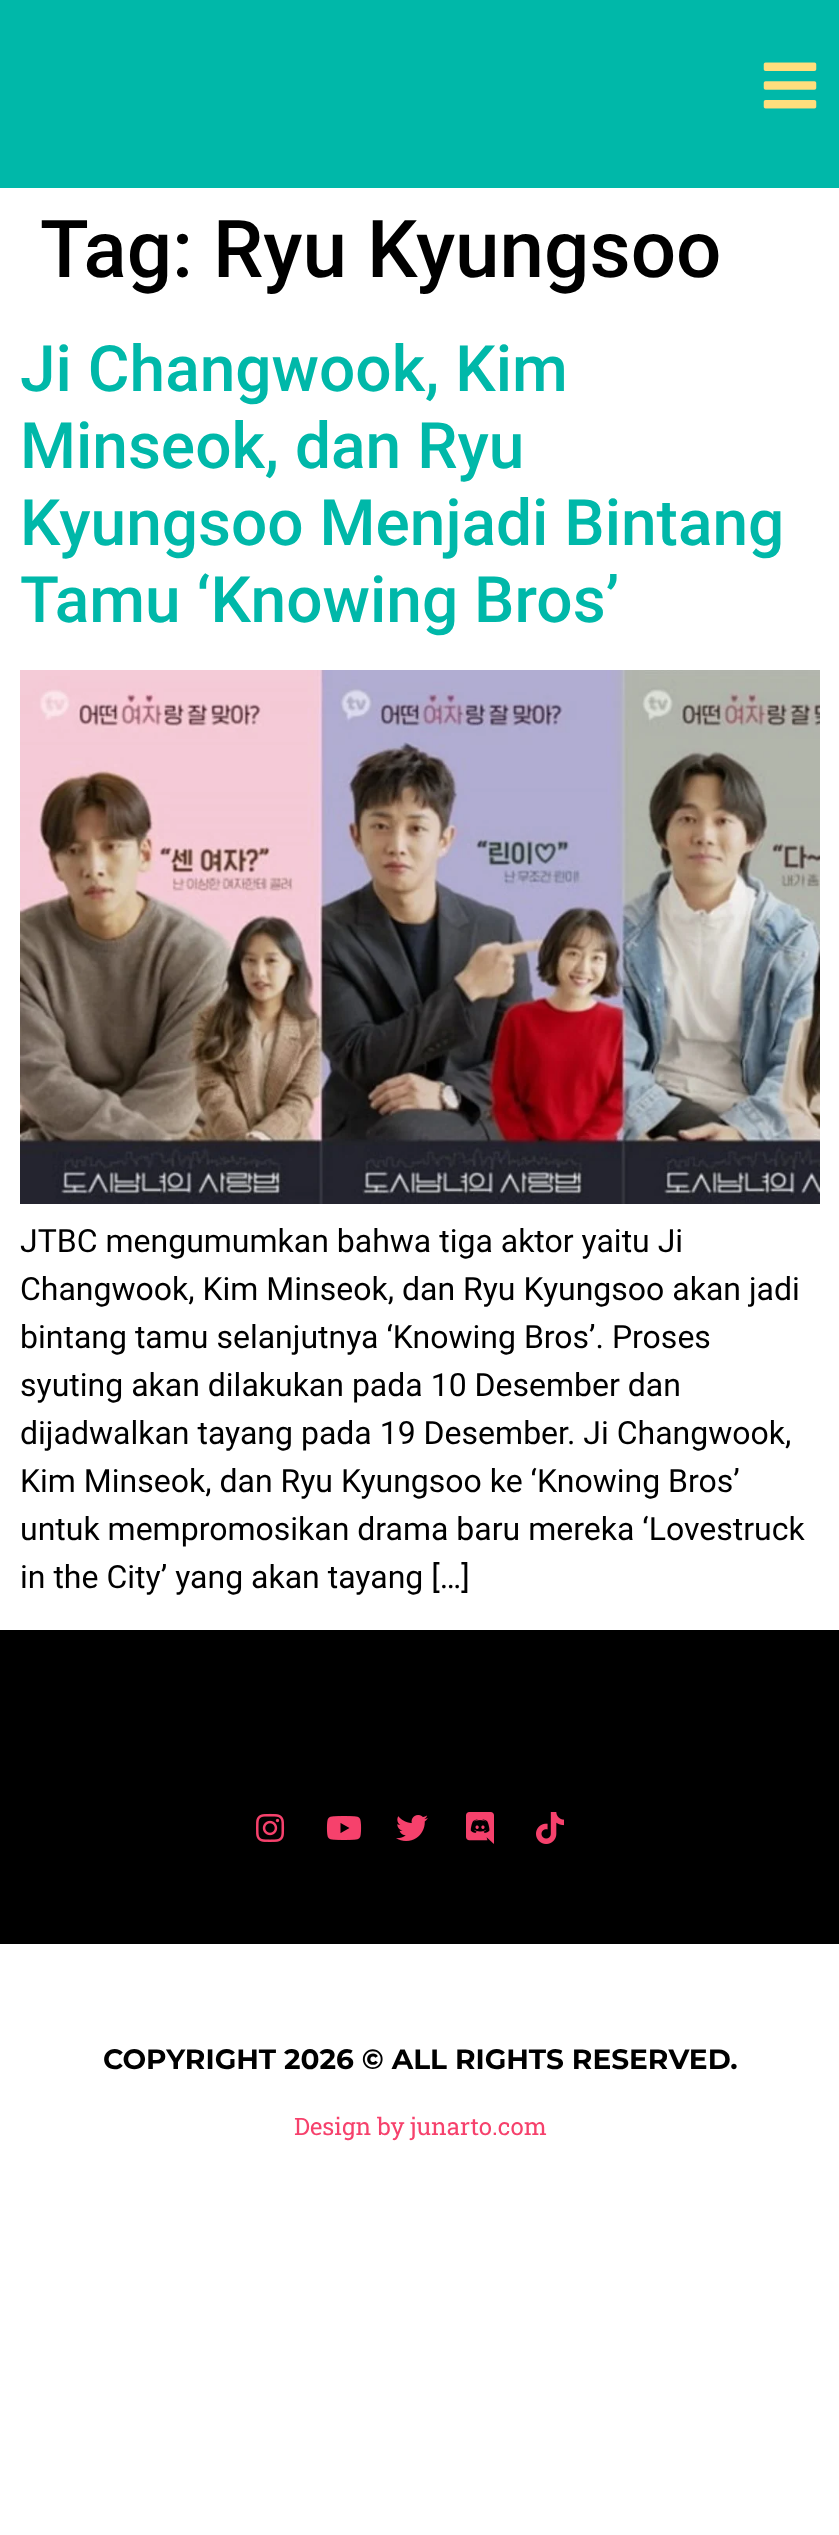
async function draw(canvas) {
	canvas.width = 839;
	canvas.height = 2535;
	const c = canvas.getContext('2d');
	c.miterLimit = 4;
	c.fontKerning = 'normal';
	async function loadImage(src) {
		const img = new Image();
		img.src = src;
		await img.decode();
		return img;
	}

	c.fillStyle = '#fff';
	c.fillRect(0, 0, 839, 2535);
	c.fillStyle = '#00b8a9';
	c.fillRect(0, 0, 839, 188);
	c.drawImage(await loadImage('img1.png'), 763, 62, 54, 47);
	c.font = '500 80px Roboto';
	c.fillStyle = '#000';
	c.fillText('Tag: Ryu Kyungsoo', 40, 277);
	c.font = '500 64px Roboto';
	c.fillStyle = '#00b8a9';
	for (const [text, x, y] of [
		['Ji Changwook, Kim', 20, 391],
		['Minseok, dan Ryu', 20, 468],
		['Kyungsoo Menjadi Bintang', 20, 545],
		['Tamu ‘Knowing Bros’', 20, 622],
	]) {
		c.fillText(text, x, y);
	}
	c.drawImage(await loadImage('img2.png'), 20, 670, 800, 534);
	c.font = '32px Roboto';
	c.fillStyle = '#000';
	for (const [text, x, y] of [
		['JTBC mengumumkan bahwa tiga aktor yaitu Ji', 20, 1252],
		['Changwook, Kim Minseok, dan Ryu Kyungsoo akan jadi', 20, 1300],
		['bintang tamu selanjutnya ‘Knowing Bros’. Proses', 20, 1348],
		['syuting akan dilakukan pada 10 Desember dan', 20, 1396],
		['dijadwalkan tayang pada 19 Desember. Ji Changwook,', 20, 1444],
		['Kim Minseok, dan Ryu Kyungsoo ke ‘Knowing Bros’', 20, 1492],
		['untuk mempromosikan drama baru mereka ‘Lovestruck', 20, 1540],
		['in the City’ yang akan tayang […]', 20, 1588],
	]) {
		c.fillText(text, x, y);
	}
	c.fillRect(0, 1630, 839, 314);
	c.drawImage(await loadImage('img3.png'), 256, 1813, 29, 29);
	c.drawImage(await loadImage('img4.png'), 326, 1816, 36, 24);
	c.drawImage(await loadImage('img5.png'), 396, 1815, 32, 26);
	c.drawImage(await loadImage('img6.png'), 466, 1812, 28, 32);
	c.drawImage(await loadImage('img7.png'), 536, 1812, 28, 32);
	c.font = 'bold 28px Montserrat';
	c.fillText('COPYRIGHT 2026 © ALL RIGHTS RESERVED.', 103, 2069);
	c.font = '24px Roboto Slab';
	c.fillStyle = '#f6416c';
	c.fillText('Design by junarto.com', 294, 2135);
}

draw(document.querySelector('canvas'));
